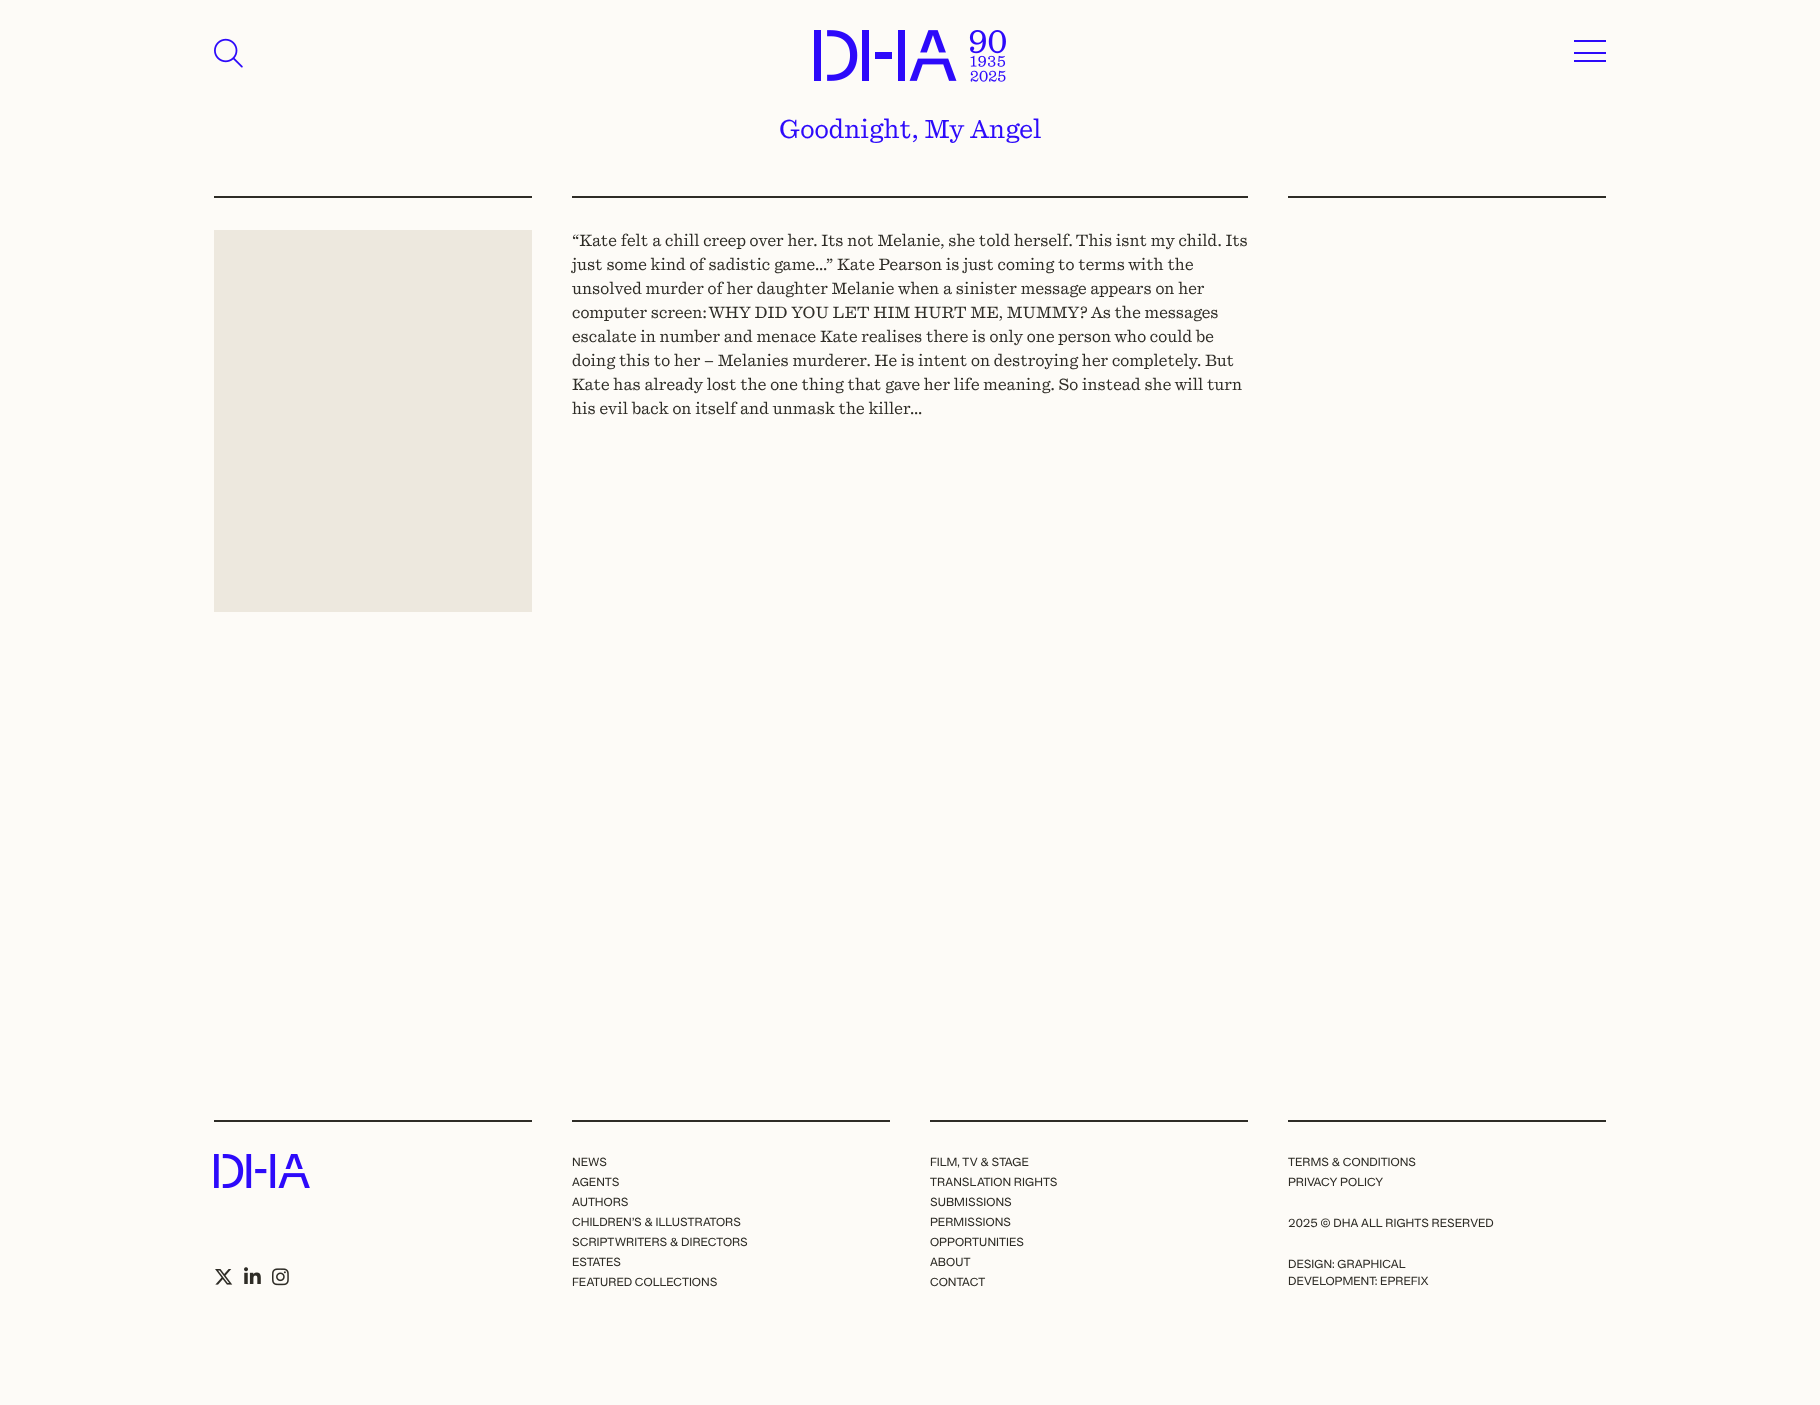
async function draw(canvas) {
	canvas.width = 1820;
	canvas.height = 1405;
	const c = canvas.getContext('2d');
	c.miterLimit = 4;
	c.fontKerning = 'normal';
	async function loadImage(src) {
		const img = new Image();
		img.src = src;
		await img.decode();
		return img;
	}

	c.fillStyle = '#fdfbf7';
	c.fillRect(0, 0, 1820, 1405);
	c.drawImage(await loadImage('img1.png'), 214, 38, 29, 30);
	c.drawImage(await loadImage('img2.png'), 814, 30, 192, 52);
	for (const [x, y, w, h, color] of [
		[1574, 52, 32, 2, '#2d0afa'],
		[1574, 40, 32, 2, '#2d0afa'],
		[1574, 60, 32, 2, '#2d0afa'],
	]) {
		c.fillStyle = color;
		c.fillRect(x, y, w, h);
	}
	c.font = '25.6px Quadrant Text';
	c.fillText('Goodnight, My Angel', 779, 138);
	for (const [x, y, w, h, color] of [
		[214, 196, 318, 2, '#2e2c26'],
		[214, 230, 318, 382, '#ede8de'],
		[1288, 196, 318, 2, '#2e2c26'],
		[572, 196, 676, 2, '#2e2c26'],
	]) {
		c.fillStyle = color;
		c.fillRect(x, y, w, h);
	}
	c.font = '16px Quadrant Text';
	for (const [text, x, y] of [
		['“Kate felt a chill creep over her. Its not Melanie, she told herself. This isnt my child. Its', 572, 246],
		['just some kind of sadistic game…” Kate Pearson is just coming to terms with the', 572, 270],
		['unsolved murder of her daughter Melanie when a sinister message appears on her', 572, 294],
		['computer screen: WHY DID YOU LET HIM HURT ME, MUMMY? As the messages', 572, 318],
		['escalate in number and menace Kate realises there is only one person who could be', 572, 342],
		['doing this to her – Melanies murderer. He is intent on destroying her completely. But', 572, 366],
		['Kate has already lost the one thing that gave her life meaning. So instead she will turn', 572, 390],
		['his evil back on itself and unmask the killer…', 572, 414],
	]) {
		c.fillText(text, x, y);
	}
	c.fillRect(214, 1120, 318, 2);
	c.drawImage(await loadImage('img3.png'), 214, 1154, 96, 34);
	c.drawImage(await loadImage('img4.png'), 215, 1269, 18, 16);
	c.drawImage(await loadImage('img5.png'), 244, 1267, 17, 17);
	c.drawImage(await loadImage('img6.png'), 272, 1268, 17, 18);
	c.fillRect(572, 1120, 318, 2);
	c.font = '11.25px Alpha';
	for (const [text, x, y] of [
		['NEWS', 572, 1166],
		['AGENTS', 572, 1186],
		['AUTHORS', 572, 1206],
		['CHILDREN’S & ILLUSTRATORS', 572, 1226],
		['SCRIPTWRITERS & DIRECTORS', 572, 1246],
		['ESTATES', 572, 1266],
		['FEATURED COLLECTIONS', 572, 1286],
	]) {
		c.fillText(text, x, y);
	}
	c.fillRect(930, 1120, 318, 2);
	for (const [text, x, y] of [
		['FILM, TV & STAGE', 930, 1166],
		['TRANSLATION RIGHTS', 930, 1186],
		['SUBMISSIONS', 930, 1206],
		['PERMISSIONS', 930, 1226],
		['OPPORTUNITIES', 930, 1246],
		['ABOUT', 930, 1266],
		['CONTACT', 930, 1286],
	]) {
		c.fillText(text, x, y);
	}
	c.fillRect(1288, 1120, 318, 2);
	for (const [text, x, y] of [
		['TERMS & CONDITIONS', 1288, 1166],
		['PRIVACY POLICY', 1288, 1186],
		['2025 © DHA ALL RIGHTS RESERVED', 1288, 1227],
		['DESIGN: GRAPHICAL', 1288, 1268],
		['DEVELOPMENT: EPREFIX', 1288, 1285],
	]) {
		c.fillText(text, x, y);
	}
}

draw(document.querySelector('canvas'));
